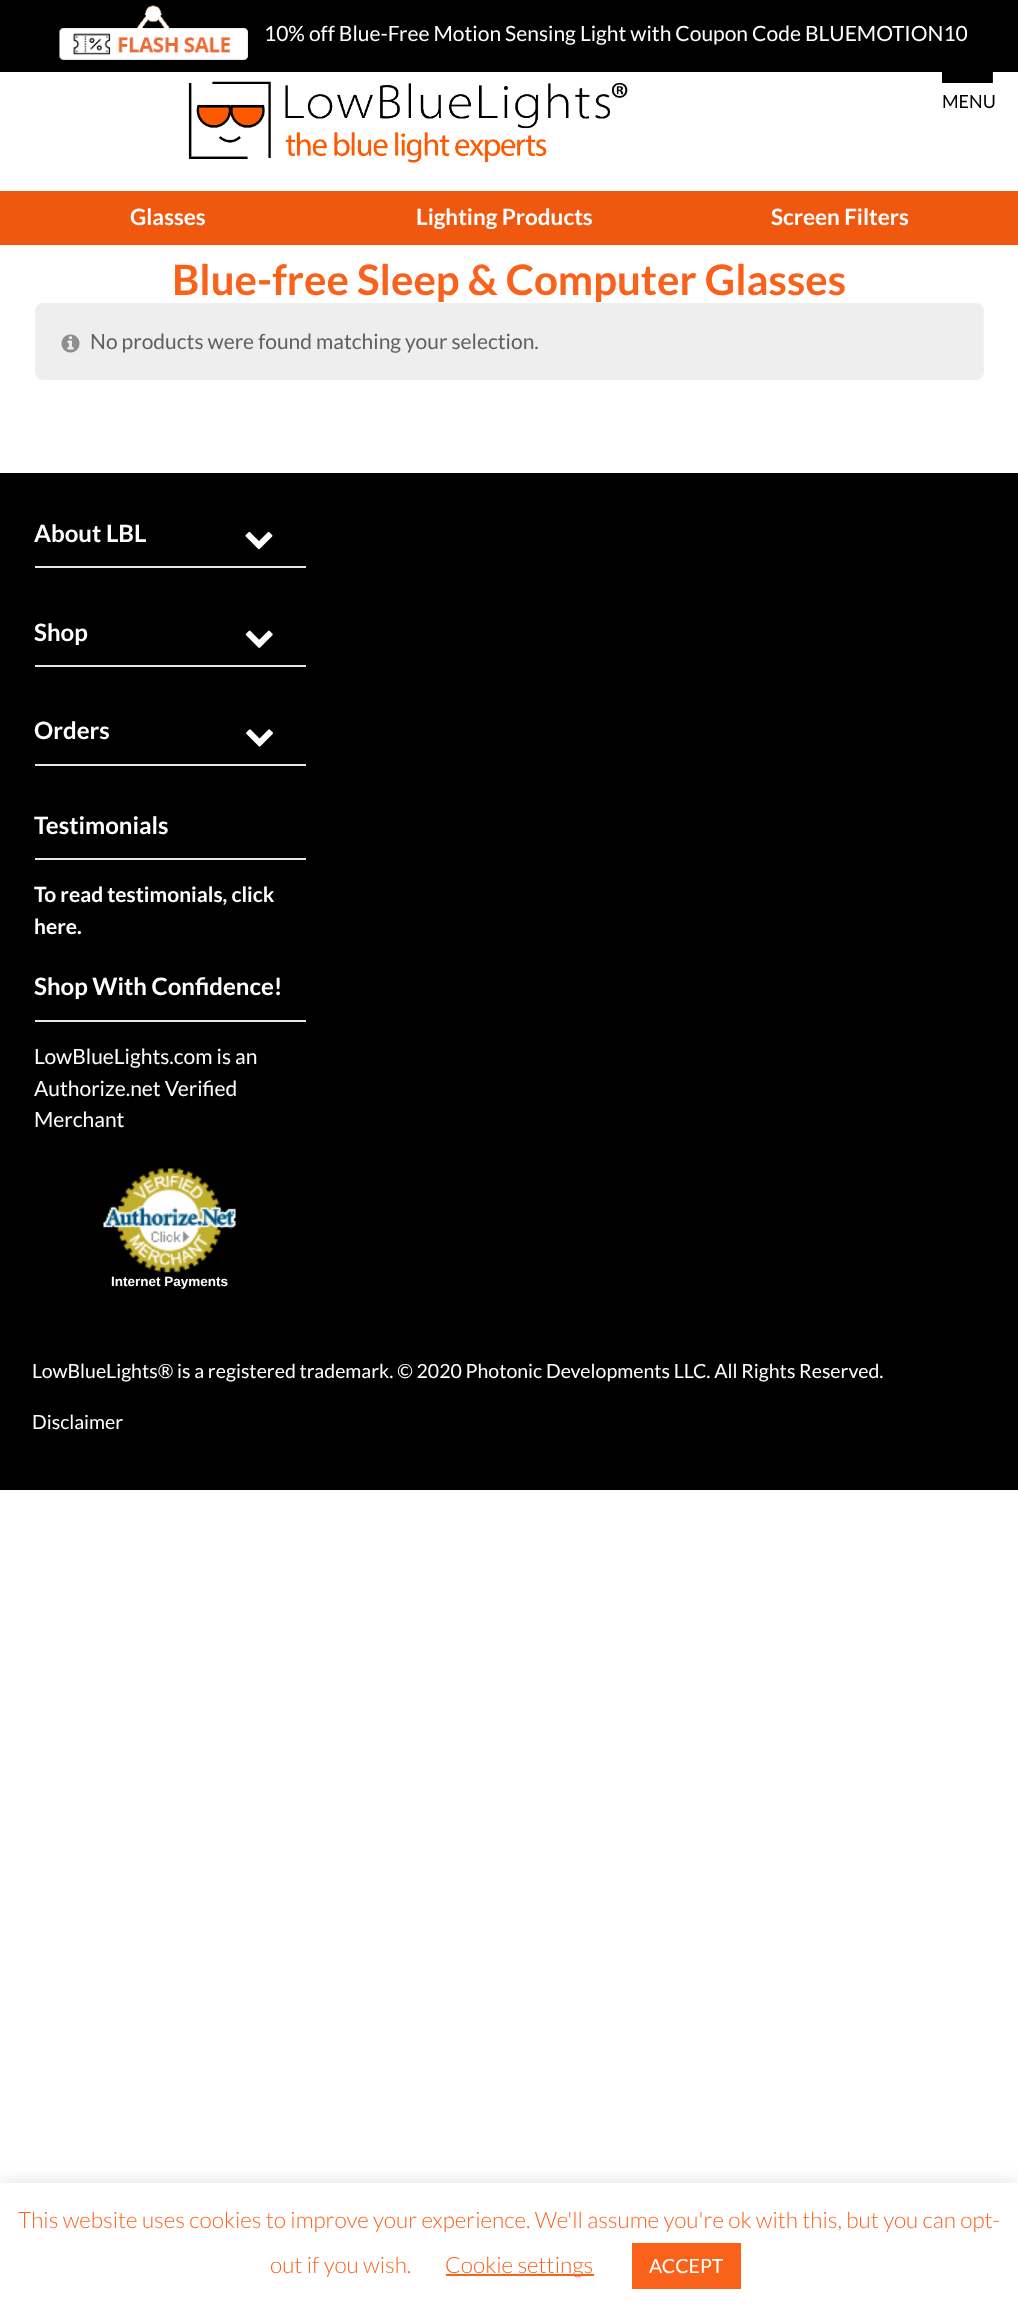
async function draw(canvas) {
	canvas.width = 1018;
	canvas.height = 2314;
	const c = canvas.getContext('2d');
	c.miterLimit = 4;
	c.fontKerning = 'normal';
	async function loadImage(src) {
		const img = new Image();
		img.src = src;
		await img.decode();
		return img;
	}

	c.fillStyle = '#fff';
	c.fillRect(0, 0, 1018, 2314);
	c.fillStyle = '#000';
	c.fillRect(0, 0, 1018, 72);
	c.drawImage(await loadImage('img1.png'), 59, 5, 189, 55);
	c.font = '21px Lato';
	c.fillStyle = '#fff';
	c.fillText('10% off Blue-Free Motion Sensing Light with Coupon Code BLUEMOTION10', 264, 41);
	c.drawImage(await loadImage('img2.png'), 188, 81, 440, 82);
	c.fillStyle = '#000';
	c.fillRect(942, 72, 50, 11);
	c.fillStyle = '#1a1a1a';
	c.fillRect(992, 72, 1, 11);
	c.font = '18px Lato';
	c.fillStyle = '#000';
	c.fillText('MENU', 942, 108);
	c.fillStyle = '#f0570f';
	c.fillRect(0, 191, 1018, 54);
	c.font = 'bold 22.5px Lato';
	c.fillStyle = '#fff';
	for (const [text, x, y] of [
		['Glasses', 130, 225],
		['Lighting Products', 416, 225],
		['Screen Filters', 771, 225],
	]) {
		c.fillText(text, x, y);
	}
	c.font = 'bold 42px Lato';
	c.fillStyle = '#fa621c';
	c.fillText('Blue-free Sleep & Computer Glasses', 172, 295);
	c.fillStyle = '#eee';
	c.beginPath();
	c.roundRect(36, 304, 947, 75, 7);
	c.fill();
	c.strokeStyle = '#f0f0f0';
	c.lineWidth = 2;
	c.stroke();
	c.drawImage(await loadImage('img3.png'), 61, 334, 19, 19);
	c.font = '21px Lato';
	c.fillStyle = '#5f5f5f';
	c.fillText('No products were found matching your selection.', 90, 349);
	c.fillStyle = '#000';
	c.fillRect(0, 473, 1018, 1017);
	c.fillStyle = '#e6e6e6';
	c.fillRect(35, 566, 271, 2);
	c.font = 'bold 24px Lato';
	c.fillStyle = '#fff';
	c.fillText('About LBL', 34, 542);
	c.drawImage(await loadImage('img4.png'), 245, 531, 28, 19);
	c.fillStyle = '#e6e6e6';
	c.fillRect(35, 665, 271, 2);
	c.fillStyle = '#fff';
	c.fillText('Shop', 34, 641);
	c.drawImage(await loadImage('img5.png'), 245, 630, 28, 18);
	c.fillStyle = '#e6e6e6';
	c.fillRect(35, 764, 271, 2);
	c.fillStyle = '#fff';
	c.fillText('Orders', 34, 739);
	c.drawImage(await loadImage('img6.png'), 246, 729, 27, 18);
	c.fillStyle = '#e6e6e6';
	c.fillRect(35, 858, 271, 2);
	c.fillStyle = '#fff';
	c.fillText('Testimonials', 34, 834);
	c.font = 'bold 21px Lato';
	c.fillText('To read testimonials, click', 34, 902);
	c.fillText('here.', 34, 934);
	c.fillStyle = '#e6e6e6';
	c.fillRect(35, 1020, 271, 2);
	c.font = 'bold 24px Lato';
	c.fillStyle = '#fff';
	c.fillText('Shop With Confidence!', 34, 995);
	c.font = '21px Lato';
	for (const [text, x, y] of [
		['LowBlueLights.com is an', 34, 1064],
		['Authorize.net Verified', 34, 1096],
		['Merchant', 34, 1127],
	]) {
		c.fillText(text, x, y);
	}
	c.drawImage(await loadImage('img7.png'), 103, 1168, 133, 105);
	c.font = 'bold 13.5px Liberation Sans';
	c.fillText('Internet Payments', 111, 1286);
	c.font = '19.5px Lato';
	c.fillText('LowBlueLights® is a registered trademark. © 2020 Photonic Developments LLC. All Rights Reserved.', 32, 1378);
	c.fillText('Disclaimer', 32, 1429);
	c.fillStyle = '#acabab4d';
	c.filter = 'blur(7.5px)';
	c.beginPath();
	c.rect(0, 2181, 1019, 132);
	c.fill();
	c.filter = 'none';
	c.fillStyle = '#fff';
	c.fillRect(0, 2183, 1018, 131);
	c.font = '300 22.5px Lato';
	c.fillStyle = '#fa621c';
	c.fillText('This website uses cookies to improve your experience. We\'ll assume you\'re ok with this, but you can opt-', 18, 2228);
	c.fillText('out if you wish.', 270, 2273);
	c.fillRect(446, 2274, 148, 2);
	c.fillText('Cookie settings', 445, 2273);
	c.fillRect(632, 2243, 109, 46);
	c.font = '19.5px Lato';
	c.fillStyle = '#fff';
	c.fillText('ACCEPT', 649, 2273);
}

draw(document.querySelector('canvas'));
